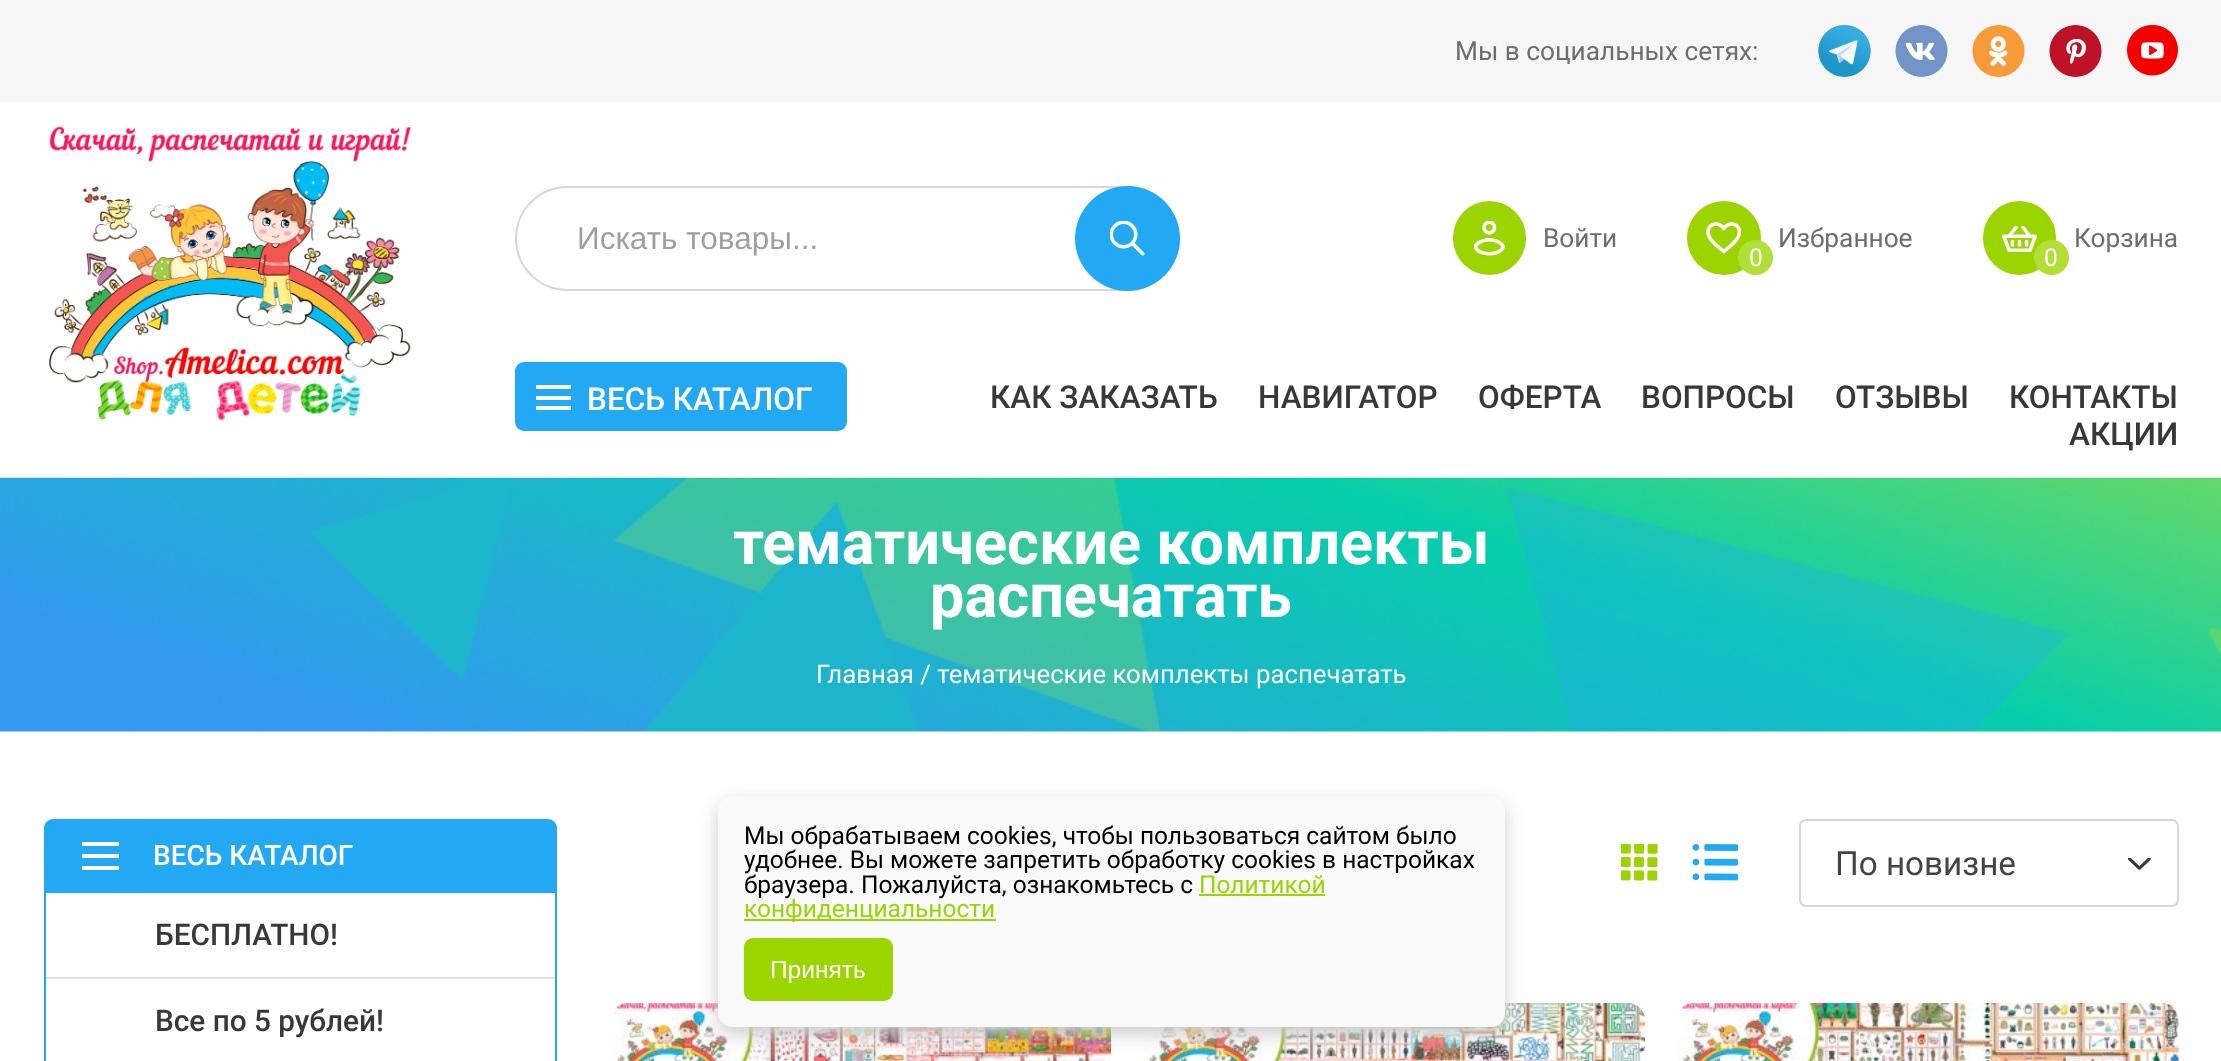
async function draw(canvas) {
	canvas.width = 2221;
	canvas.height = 1061;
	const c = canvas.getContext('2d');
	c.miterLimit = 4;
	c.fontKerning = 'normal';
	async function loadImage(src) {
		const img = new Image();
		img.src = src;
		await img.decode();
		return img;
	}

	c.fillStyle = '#fff';
	c.fillRect(0, 0, 2221, 1061);
	c.fillStyle = '#f6f6f6';
	c.fillRect(0, 0, 2221, 102);
	c.font = '26.25px Roboto';
	c.fillStyle = '#6d6d6d';
	c.fillText('Мы в социальных сетях:', 1455, 60);
	c.drawImage(await loadImage('img1.png'), 1818, 25, 53, 52);
	c.drawImage(await loadImage('img2.png'), 1895, 25, 53, 52);
	c.drawImage(await loadImage('img3.png'), 1972, 25, 53, 52);
	c.drawImage(await loadImage('img4.png'), 2049, 25, 53, 52);
	c.drawImage(await loadImage('img5.png'), 2127, 25, 51, 51);
	c.drawImage(await loadImage('img6.png'), 49, 126, 363, 294);
	c.beginPath();
	c.roundRect(516, 187, 663, 103, 51.5);
	c.strokeStyle = '#d7d7d7';
	c.lineWidth = 2;
	c.stroke();
	c.font = '31.5px Liberation Sans';
	c.fillStyle = '#9f9f9f';
	c.fillText('Искать товары...', 577, 249);
	c.fillStyle = '#23a9f4';
	c.beginPath();
	c.arc(1127.5, 238.5, 52.5, 0, 2 * Math.PI);
	c.fill();
	c.drawImage(await loadImage('img7.png'), 1110, 221, 35, 35);
	c.fillStyle = '#9bd400';
	c.beginPath();
	c.roundRect(1453, 201, 73, 74, 36.5);
	c.fill();
	c.drawImage(await loadImage('img8.png'), 1474, 221, 31, 35);
	c.font = '26.25px Roboto';
	c.fillStyle = '#6d6d6d';
	c.fillText('Войти', 1543, 247);
	c.fillText('Избранное', 1778, 247);
	c.fillStyle = '#9bd400';
	c.beginPath();
	c.arc(1724, 238, 37, 0, 2 * Math.PI);
	c.fill();
	c.drawImage(await loadImage('img9.png'), 1706, 222, 35, 32);
	c.fillStyle = '#b1df36';
	c.beginPath();
	c.arc(1755.5, 257.5, 17.5, 0, 2 * Math.PI);
	c.fill();
	c.font = '24.5px Roboto';
	c.fillStyle = '#fff';
	c.fillText('0', 1749, 266);
	c.font = '26.25px Roboto';
	c.fillStyle = '#6d6d6d';
	c.fillText('Корзина', 2074, 247);
	c.fillStyle = '#9bd400';
	c.beginPath();
	c.roundRect(1983, 201, 73, 74, 36.5);
	c.fill();
	c.drawImage(await loadImage('img10.png'), 2002, 226, 35, 26);
	c.fillStyle = '#b1df36';
	c.beginPath();
	c.arc(2051.5, 257.5, 17.5, 0, 2 * Math.PI);
	c.fill();
	c.font = '24.5px Roboto';
	c.fillStyle = '#fff';
	c.fillText('0', 2044, 266);
	c.fillStyle = '#23a9f4';
	c.beginPath();
	c.roundRect(515, 362, 332, 69, 9);
	c.fill();
	for (const [x, y, w, h, color] of [
		[536, 385, 35, 4, '#fff'],
		[536, 396, 35, 4, '#fff'],
		[536, 406, 35, 4, '#fff'],
	]) {
		c.fillStyle = color;
		c.fillRect(x, y, w, h);
	}
	c.font = '500 31.5px Roboto';
	c.fillText('ВЕСЬ КАТАЛОГ', 587, 410);
	c.fillStyle = '#383838';
	for (const [text, x, y] of [
		['КАК ЗАКАЗАТЬ', 990, 408],
		['НАВИГАТОР', 1258, 408],
		['ОФЕРТА', 1478, 408],
		['ВОПРОСЫ', 1641, 408],
		['ОТЗЫВЫ', 1835, 408],
		['КОНТАКТЫ', 2009, 408],
		['АКЦИИ', 2069, 445],
	]) {
		c.fillText(text, x, y);
	}
	c.drawImage(await loadImage('img11.png'), 0, 477, 2221, 255);
	c.font = 'bold 61.25px Roboto';
	c.fillStyle = '#fff';
	c.fillText('тематические комплекты', 733, 564);
	c.fillText('распечатать', 930, 617);
	c.font = '25.75px Roboto';
	c.fillText('Главная / тематические комплекты распечатать', 816, 683);
	c.drawImage(await loadImage('img15.png'), 611, 1002, 501, 59);
	c.drawImage(await loadImage('img16.png'), 1143, 1002, 502, 59);
	c.fillStyle = '#ccc';
	c.filter = 'blur(9px)';
	c.beginPath();
	c.roundRect(718, 803, 787, 231, 14);
	c.fill();
	c.filter = 'none';
	c.fillStyle = '#f9f9f9';
	c.beginPath();
	c.roundRect(718, 796, 787, 231, 14);
	c.fill();
	c.font = '24.5px Roboto';
	c.fillStyle = '#000';
	for (const [text, x, y] of [
		['Мы обрабатываем cookies, чтобы пользоваться сайтом было', 744, 844],
		['удобнее. Вы можете запретить обработку cookies в настройках', 744, 868],
		['браузера. Пожалуйста, ознакомьтесь с', 744, 893],
	]) {
		c.fillText(text, x, y);
	}
	c.fillStyle = '#9bd500';
	c.fillText('Политикой', 1199, 893);
	c.fillRect(1199, 894, 126, 2);
	c.fillRect(744, 919, 252, 2);
	c.fillText('конфиденциальности', 744, 917);
	c.beginPath();
	c.roundRect(744, 938, 149, 63, 9);
	c.fill();
	c.font = '24.5px Liberation Sans';
	c.fillStyle = '#fff';
	c.fillText('Принять', 770, 978);
	c.fillStyle = '#23a9f4';
	c.beginPath();
	c.roundRect(44, 819, 513, 72, [9, 9, 0, 0]);
	c.fill();
	for (const [x, y, w, h, color] of [
		[82, 842, 37, 4, '#fff'],
		[82, 854, 37, 4, '#fff'],
		[82, 866, 37, 4, '#fff'],
	]) {
		c.fillStyle = color;
		c.fillRect(x, y, w, h);
	}
	c.font = '500 28px Roboto';
	c.fillText('ВЕСЬ КАТАЛОГ', 153, 865);
	c.strokeStyle = '#23a9f4';
	c.strokeRect(45, 892, 511, 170);
	c.fillStyle = '#e2e2e2';
	c.fillRect(46, 977, 509, 2);
	c.font = '500 29.75px Roboto';
	c.fillStyle = '#383838';
	c.fillText('БЕСПЛАТНО!', 155, 945);
	c.fillText('Все по 5 рублей!', 155, 1031);
	c.drawImage(await loadImage('img12.png'), 1621, 844, 37, 37);
	c.drawImage(await loadImage('img13.png'), 1692, 844, 47, 37);
	c.beginPath();
	c.roundRect(1800, 820, 378, 86, 6);
	c.strokeStyle = '#d7d7d7';
	c.stroke();
	c.font = '33.25px Roboto';
	c.fillStyle = '#444';
	c.fillText('По новизне', 1835, 875);
	c.drawImage(await loadImage('img14.png'), 2128, 858, 23, 12);
	c.drawImage(await loadImage('img17.png'), 1676, 1002, 503, 59);
}

draw(document.querySelector('canvas'));
